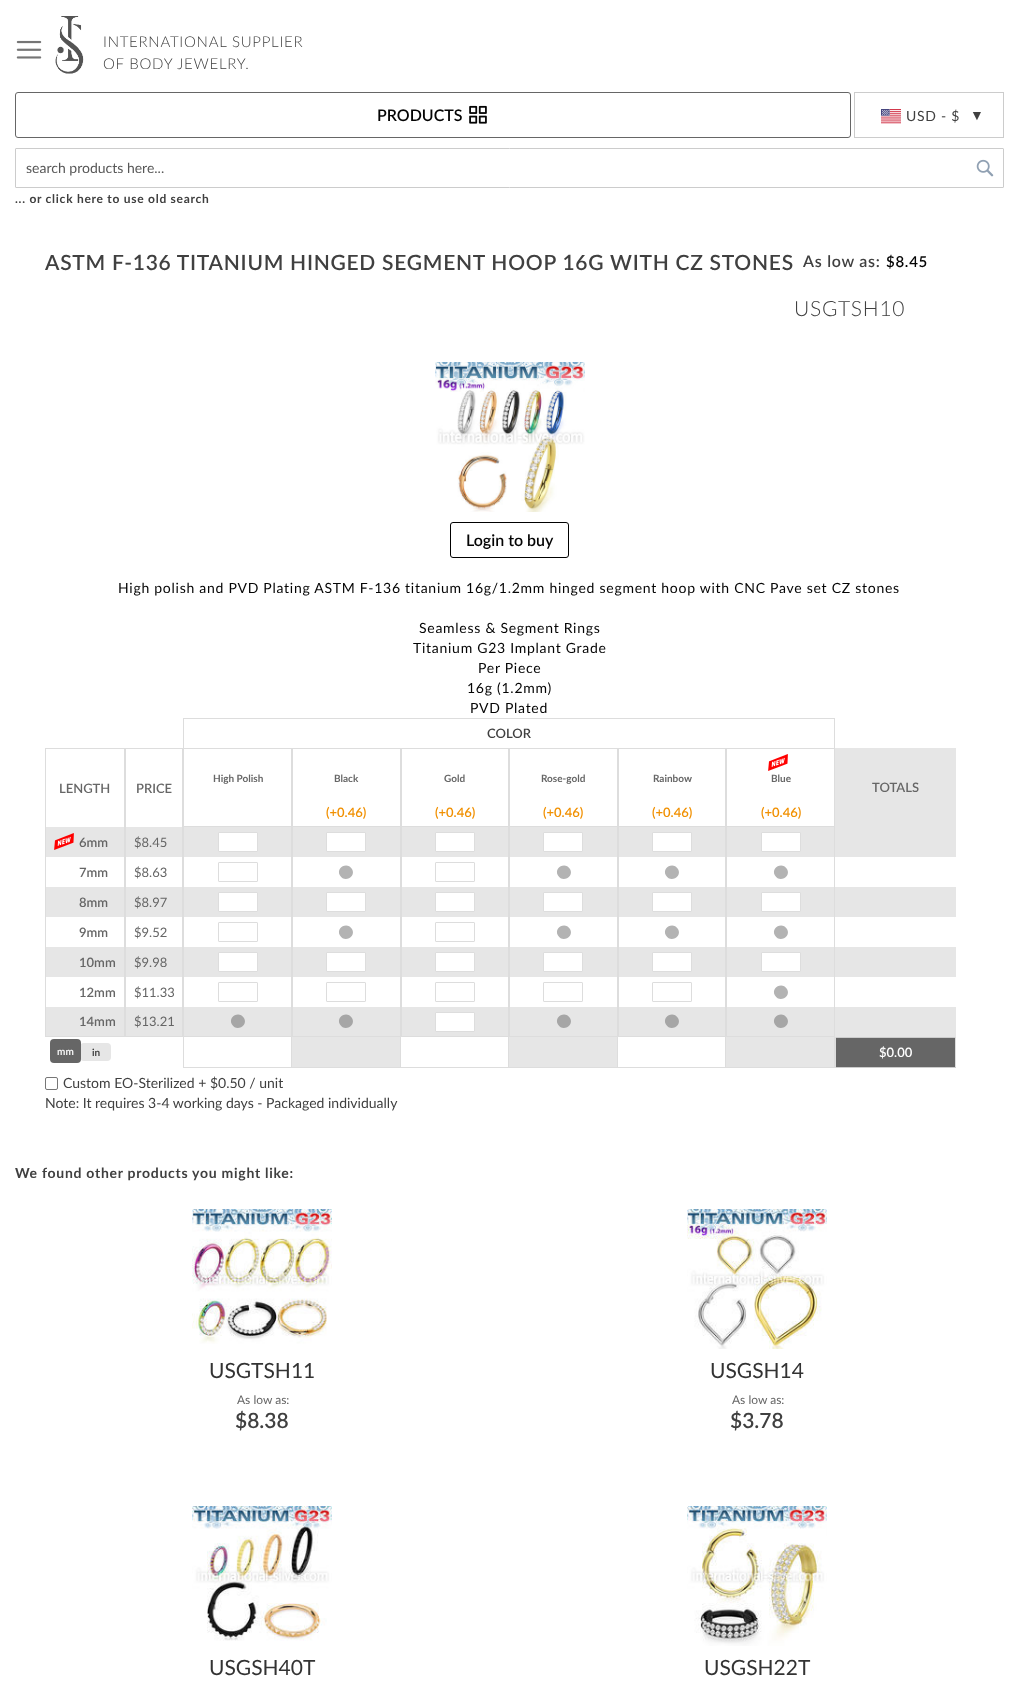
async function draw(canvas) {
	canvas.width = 1019;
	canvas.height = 1690;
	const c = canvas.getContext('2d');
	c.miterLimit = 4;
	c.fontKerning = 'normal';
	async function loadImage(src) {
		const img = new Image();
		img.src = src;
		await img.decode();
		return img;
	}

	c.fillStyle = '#fff';
	c.fillRect(0, 0, 1019, 1690);
	c.drawImage(await loadImage('img1.png'), 16, 40, 26, 19);
	c.drawImage(await loadImage('img2.png'), 55, 16, 29, 58);
	c.letterSpacing = '0.73px';
	c.font = '300 15px Lato';
	c.fillStyle = '#404040';
	c.fillText('INTERNATIONAL SUPPLIER', 103, 47);
	c.fillText('OF BODY JEWELRY.', 103, 69);
	c.strokeStyle = '#ccc';
	c.strokeRect(854.5, 92.5, 149, 45);
	c.drawImage(await loadImage('img3.png'), 881, 109, 20, 15);
	c.font = '14px Lato';
	c.fillText('USD - $', 906, 121);
	c.font = '14px Liberation Serif';
	c.fillText('▼', 970, 120);
	c.beginPath();
	c.roundRect(15.5, 92.5, 835, 45, 2.5);
	c.strokeStyle = '#666';
	c.stroke();
	c.letterSpacing = '0px';
	c.font = '600 16px Lato';
	c.fillStyle = '#040404';
	c.fillText('PRODUCTS', 377, 121);
	c.drawImage(await loadImage('img4.png'), 469, 105, 18, 19);
	c.beginPath();
	c.roundRect(15.5, 148.5, 988, 39, 0.5);
	c.strokeStyle = '#ccc';
	c.stroke();
	c.font = '14px Lato';
	c.fillStyle = '#575757';
	c.fillText('search products here...', 26, 173);
	c.drawImage(await loadImage('img5.png'), 976, 159, 18, 18);
	c.letterSpacing = '0.73px';
	c.font = 'bold 12px Lato';
	c.fillStyle = '#404040';
	c.fillText('... or click here to use old search', 15, 203);
	c.font = '600 21px Lato';
	c.fillText('ASTM F-136 TITANIUM HINGED SEGMENT HOOP 16G WITH CZ STONES', 45, 270);
	c.font = '600 16px Lato';
	c.fillText('As low as:', 803, 267);
	c.font = '600 15px Lato';
	c.fillStyle = '#040404';
	c.fillText('$8.45', 886, 267);
	c.font = '300 21px Lato';
	c.fillStyle = '#404040';
	c.fillText('USGTSH10', 794, 316);
	c.drawImage(await loadImage('img6.png'), 435, 362, 150, 150);
	c.beginPath();
	c.roundRect(450.5, 522.5, 118, 35, 2.5);
	c.strokeStyle = '#000';
	c.stroke();
	c.letterSpacing = '0px';
	c.font = '600 16px Lato';
	c.fillStyle = '#040404';
	c.fillText('Login to buy', 466, 546);
	c.letterSpacing = '0.73px';
	c.font = '14px Lato';
	for (const [text, x, y] of [
		['High polish and PVD Plating ASTM F-136 titanium 16g/1.2mm hinged segment hoop with CNC Pave set CZ stones', 118, 593],
		['Seamless & Segment Rings', 419, 633],
		['Titanium G23 Implant Grade', 413, 653],
		['Per Piece', 478, 673],
		['16g (1.2mm)', 467, 693],
		['PVD Plated', 470, 713],
	]) {
		c.fillText(text, x, y);
	}
	for (const [x, y, w, h, color] of [
		[45, 748, 138, 1, '#ddd'],
		[124, 748, 2, 79, '#ddd'],
		[45, 748, 1, 79, '#ddd'],
	]) {
		c.fillStyle = color;
		c.fillRect(x, y, w, h);
	}
	c.letterSpacing = '0px';
	c.font = '600 13px Lato';
	c.fillStyle = '#666';
	c.fillText('LENGTH', 59, 793);
	c.fillStyle = '#ddd';
	c.fillRect(182, 748, 1, 79);
	c.fillStyle = '#666';
	c.fillText('PRICE', 136, 793);
	for (const [x, y, w, h, color] of [
		[46, 827, 78, 30, '#e6e6e6'],
		[124, 827, 2, 30, '#ddd'],
		[45, 827, 1, 180, '#ddd'],
	]) {
		c.fillStyle = color;
		c.fillRect(x, y, w, h);
	}
	c.drawImage(await loadImage('img7.png'), 54, 833, 20, 17);
	c.fillStyle = '#666';
	c.fillText('6mm', 79, 847);
	c.fillStyle = '#e6e6e6';
	c.fillRect(126, 827, 56, 30);
	c.fillStyle = '#ddd';
	c.fillRect(182, 827, 1, 210);
	c.font = '13px Lato';
	c.fillStyle = '#666';
	c.fillText('$8.45', 134, 847);
	c.fillStyle = '#ddd';
	c.fillRect(124, 857, 2, 30);
	c.font = '600 13px Lato';
	c.fillStyle = '#666';
	c.fillText('7mm', 79, 877);
	c.font = '13px Lato';
	c.fillText('$8.63', 134, 877);
	c.fillStyle = '#e6e6e6';
	c.fillRect(46, 887, 78, 30);
	c.fillStyle = '#ddd';
	c.fillRect(124, 887, 2, 30);
	c.font = '600 13px Lato';
	c.fillStyle = '#666';
	c.fillText('8mm', 79, 907);
	c.fillStyle = '#e6e6e6';
	c.fillRect(126, 887, 56, 30);
	c.font = '13px Lato';
	c.fillStyle = '#666';
	c.fillText('$8.97', 134, 907);
	c.fillStyle = '#ddd';
	c.fillRect(124, 917, 2, 30);
	c.font = '600 13px Lato';
	c.fillStyle = '#666';
	c.fillText('9mm', 79, 937);
	c.font = '13px Lato';
	c.fillText('$9.52', 134, 937);
	c.fillStyle = '#e6e6e6';
	c.fillRect(46, 947, 78, 30);
	c.fillStyle = '#ddd';
	c.fillRect(124, 947, 2, 30);
	c.font = '600 13px Lato';
	c.fillStyle = '#666';
	c.fillText('10mm', 79, 967);
	c.fillStyle = '#e6e6e6';
	c.fillRect(126, 947, 56, 30);
	c.font = '13px Lato';
	c.fillStyle = '#666';
	c.fillText('$9.98', 134, 967);
	c.fillStyle = '#ddd';
	c.fillRect(124, 977, 2, 30);
	c.font = '600 13px Lato';
	c.fillStyle = '#666';
	c.fillText('12mm', 79, 997);
	c.font = '13px Lato';
	c.fillText('$11.33', 134, 997);
	for (const [x, y, w, h, color] of [
		[46, 1007, 78, 29, '#e6e6e6'],
		[124, 1007, 1, 30, '#ddd'],
		[45, 1036, 138, 1, '#ddd'],
		[45, 1007, 1, 30, '#ddd'],
	]) {
		c.fillStyle = color;
		c.fillRect(x, y, w, h);
	}
	c.font = '600 13px Lato';
	c.fillStyle = '#666';
	c.fillText('14mm', 79, 1026);
	c.fillStyle = '#e6e6e6';
	c.fillRect(126, 1007, 56, 29);
	c.fillStyle = '#ddd';
	c.fillRect(125, 1007, 1, 30);
	c.font = '13px Lato';
	c.fillStyle = '#666';
	c.fillText('$13.21', 134, 1026);
	c.fillStyle = '#e6e6e6';
	c.beginPath();
	c.roundRect(80, 1043, 31, 18, 4);
	c.fill();
	c.fillStyle = '#666';
	c.beginPath();
	c.roundRect(50, 1039, 31, 24, 4);
	c.fill();
	c.font = 'bold 10px Lato';
	c.fillStyle = '#f5f5f5';
	c.fillText('mm', 57, 1055);
	c.fillStyle = '#404040';
	c.fillText('in', 92, 1056);
	for (const [x, y, w, h, color] of [
		[183, 718, 652, 1, '#ddd'],
		[834, 718, 1, 30, '#ddd'],
		[183, 718, 1, 30, '#ddd'],
	]) {
		c.fillStyle = color;
		c.fillRect(x, y, w, h);
	}
	c.font = '600 13px Lato';
	c.fillStyle = '#404040';
	c.fillText('COLOR', 487, 738);
	c.strokeStyle = '#ddd';
	c.strokeRect(183.5, 748.5, 108, 78);
	c.font = 'bold 10px Lato';
	c.fillStyle = '#666';
	c.fillText('High Polish', 213, 782);
	c.strokeRect(292.5, 748.5, 108, 78);
	c.fillText('Black', 334, 782);
	c.font = '600 13px Lato';
	c.fillStyle = '#f19001';
	c.fillText('(+0.46)', 326, 817);
	c.strokeRect(401.5, 748.5, 107, 78);
	c.font = 'bold 10px Lato';
	c.fillStyle = '#666';
	c.fillText('Gold', 444, 782);
	c.font = '600 13px Lato';
	c.fillStyle = '#f19001';
	c.fillText('(+0.46)', 435, 817);
	c.strokeRect(509.5, 748.5, 108, 78);
	c.font = 'bold 10px Lato';
	c.fillStyle = '#666';
	c.fillText('Rose-gold', 541, 782);
	c.font = '600 13px Lato';
	c.fillStyle = '#f19001';
	c.fillText('(+0.46)', 543, 817);
	c.strokeRect(618.5, 748.5, 107, 78);
	c.font = 'bold 10px Lato';
	c.fillStyle = '#666';
	c.fillText('Rainbow', 653, 782);
	c.font = '600 13px Lato';
	c.fillStyle = '#f19001';
	c.fillText('(+0.46)', 652, 817);
	c.strokeRect(726.5, 748.5, 108, 78);
	c.drawImage(await loadImage('img8.png'), 768, 754, 20, 17);
	c.font = 'bold 10px Lato';
	c.fillStyle = '#666';
	c.fillText('Blue', 771, 782);
	c.font = '600 13px Lato';
	c.fillStyle = '#f19001';
	c.fillText('(+0.46)', 761, 817);
	for (const [x, y, w, h, color] of [
		[184, 827, 107, 30, '#e6e6e6'],
		[291, 827, 2, 30, '#ddd'],
		[183, 827, 1, 180, '#ddd'],
	]) {
		c.fillStyle = color;
		c.fillRect(x, y, w, h);
	}
	c.fillStyle = '#fff';
	c.beginPath();
	c.roundRect(218.5, 832.5, 39, 19, 0.5);
	c.fill();
	c.stroke();
	c.fillStyle = '#e6e6e6';
	c.fillRect(293, 827, 107, 30);
	c.fillStyle = '#ddd';
	c.fillRect(400, 827, 2, 30);
	c.fillStyle = '#fff';
	c.beginPath();
	c.roundRect(326.5, 832.5, 39, 19, 0.5);
	c.fill();
	c.stroke();
	c.fillStyle = '#e6e6e6';
	c.fillRect(402, 827, 106, 30);
	c.fillStyle = '#ddd';
	c.fillRect(508, 827, 2, 30);
	c.fillStyle = '#fff';
	c.beginPath();
	c.roundRect(435.5, 832.5, 39, 19, 0.5);
	c.fill();
	c.stroke();
	c.fillStyle = '#e6e6e6';
	c.fillRect(510, 827, 107, 30);
	c.fillStyle = '#ddd';
	c.fillRect(617, 827, 2, 30);
	c.fillStyle = '#fff';
	c.beginPath();
	c.roundRect(543.5, 832.5, 39, 19, 0.5);
	c.fill();
	c.stroke();
	c.fillStyle = '#e6e6e6';
	c.fillRect(619, 827, 106, 30);
	c.fillStyle = '#ddd';
	c.fillRect(725, 827, 2, 30);
	c.fillStyle = '#fff';
	c.beginPath();
	c.roundRect(652.5, 832.5, 39, 19, 0.5);
	c.fill();
	c.stroke();
	c.fillStyle = '#e6e6e6';
	c.fillRect(727, 827, 107, 30);
	c.fillStyle = '#ddd';
	c.fillRect(834, 827, 1, 241);
	c.fillStyle = '#fff';
	c.beginPath();
	c.roundRect(761.5, 832.5, 39, 19, 0.5);
	c.fill();
	c.stroke();
	c.fillStyle = '#ddd';
	c.fillRect(291, 857, 2, 30);
	c.beginPath();
	c.roundRect(218.5, 862.5, 39, 19, 0.5);
	c.stroke();
	c.fillRect(400, 857, 2, 30);
	c.fillStyle = '#b3b3b3';
	c.beginPath();
	c.moveTo(352, 869);
	c.bezierCurveTo(356.5, 876.5, 344.5, 883.5, 340, 875.5);
	c.bezierCurveTo(335.5, 868, 347, 861, 352, 869);
	c.closePath();
	c.fill();
	c.fillStyle = '#ddd';
	c.fillRect(508, 857, 2, 30);
	c.beginPath();
	c.roundRect(435.5, 862.5, 39, 19, 0.5);
	c.stroke();
	c.fillRect(617, 857, 2, 30);
	c.fillStyle = '#b3b3b3';
	c.beginPath();
	c.moveTo(570, 869);
	c.bezierCurveTo(574.5, 876.5, 562.5, 883.5, 558, 875.5);
	c.bezierCurveTo(553.5, 868, 565, 861, 570, 869);
	c.closePath();
	c.fill();
	c.fillStyle = '#ddd';
	c.fillRect(725, 857, 2, 30);
	c.fillStyle = '#b3b3b3';
	c.beginPath();
	c.moveTo(678, 869);
	c.bezierCurveTo(682.5, 876.5, 670.5, 883.5, 666, 875.5);
	c.bezierCurveTo(661.5, 868, 673, 861, 678, 869);
	c.closePath();
	c.fill();
	c.beginPath();
	c.moveTo(787, 869);
	c.bezierCurveTo(791.5, 876.5, 779.5, 883.5, 775, 875.5);
	c.bezierCurveTo(770.5, 868, 782, 861, 787, 869);
	c.closePath();
	c.fill();
	c.fillStyle = '#e6e6e6';
	c.fillRect(184, 887, 107, 30);
	c.fillStyle = '#ddd';
	c.fillRect(291, 887, 2, 30);
	c.fillStyle = '#fff';
	c.beginPath();
	c.roundRect(218.5, 892.5, 39, 19, 0.5);
	c.fill();
	c.stroke();
	c.fillStyle = '#e6e6e6';
	c.fillRect(293, 887, 107, 30);
	c.fillStyle = '#ddd';
	c.fillRect(400, 887, 2, 30);
	c.fillStyle = '#fff';
	c.beginPath();
	c.roundRect(326.5, 892.5, 39, 19, 0.5);
	c.fill();
	c.stroke();
	c.fillStyle = '#e6e6e6';
	c.fillRect(402, 887, 106, 30);
	c.fillStyle = '#ddd';
	c.fillRect(508, 887, 2, 30);
	c.fillStyle = '#fff';
	c.beginPath();
	c.roundRect(435.5, 892.5, 39, 19, 0.5);
	c.fill();
	c.stroke();
	c.fillStyle = '#e6e6e6';
	c.fillRect(510, 887, 107, 30);
	c.fillStyle = '#ddd';
	c.fillRect(617, 887, 2, 30);
	c.fillStyle = '#fff';
	c.beginPath();
	c.roundRect(543.5, 892.5, 39, 19, 0.5);
	c.fill();
	c.stroke();
	c.fillStyle = '#e6e6e6';
	c.fillRect(619, 887, 106, 30);
	c.fillStyle = '#ddd';
	c.fillRect(725, 887, 2, 30);
	c.fillStyle = '#fff';
	c.beginPath();
	c.roundRect(652.5, 892.5, 39, 19, 0.5);
	c.fill();
	c.stroke();
	c.fillStyle = '#e6e6e6';
	c.fillRect(727, 887, 107, 30);
	c.fillStyle = '#fff';
	c.beginPath();
	c.roundRect(761.5, 892.5, 39, 19, 0.5);
	c.fill();
	c.stroke();
	c.fillStyle = '#ddd';
	c.fillRect(291, 917, 2, 30);
	c.beginPath();
	c.roundRect(218.5, 922.5, 39, 19, 0.5);
	c.stroke();
	c.fillRect(400, 917, 2, 30);
	c.fillStyle = '#b3b3b3';
	c.beginPath();
	c.moveTo(352, 929);
	c.bezierCurveTo(356.5, 936.5, 344.5, 943.5, 340, 935.5);
	c.bezierCurveTo(335.5, 928, 347, 921, 352, 929);
	c.closePath();
	c.fill();
	c.fillStyle = '#ddd';
	c.fillRect(508, 917, 2, 30);
	c.beginPath();
	c.roundRect(435.5, 922.5, 39, 19, 0.5);
	c.stroke();
	c.fillRect(617, 917, 2, 30);
	c.fillStyle = '#b3b3b3';
	c.beginPath();
	c.moveTo(570, 929);
	c.bezierCurveTo(574.5, 936.5, 562.5, 943.5, 558, 935.5);
	c.bezierCurveTo(553.5, 928, 565, 921, 570, 929);
	c.closePath();
	c.fill();
	c.fillStyle = '#ddd';
	c.fillRect(725, 917, 2, 30);
	c.fillStyle = '#b3b3b3';
	c.beginPath();
	c.moveTo(678, 929);
	c.bezierCurveTo(682.5, 936.5, 670.5, 943.5, 666, 935.5);
	c.bezierCurveTo(661.5, 928, 673, 921, 678, 929);
	c.closePath();
	c.fill();
	c.beginPath();
	c.moveTo(787, 929);
	c.bezierCurveTo(791.5, 936.5, 779.5, 943.5, 775, 935.5);
	c.bezierCurveTo(770.5, 928, 782, 921, 787, 929);
	c.closePath();
	c.fill();
	c.fillStyle = '#e6e6e6';
	c.fillRect(184, 947, 107, 30);
	c.fillStyle = '#ddd';
	c.fillRect(291, 947, 2, 30);
	c.fillStyle = '#fff';
	c.beginPath();
	c.roundRect(218.5, 952.5, 39, 19, 0.5);
	c.fill();
	c.stroke();
	c.fillStyle = '#e6e6e6';
	c.fillRect(293, 947, 107, 30);
	c.fillStyle = '#ddd';
	c.fillRect(400, 947, 2, 30);
	c.fillStyle = '#fff';
	c.beginPath();
	c.roundRect(326.5, 952.5, 39, 19, 0.5);
	c.fill();
	c.stroke();
	c.fillStyle = '#e6e6e6';
	c.fillRect(402, 947, 106, 30);
	c.fillStyle = '#ddd';
	c.fillRect(508, 947, 2, 30);
	c.fillStyle = '#fff';
	c.beginPath();
	c.roundRect(435.5, 952.5, 39, 19, 0.5);
	c.fill();
	c.stroke();
	c.fillStyle = '#e6e6e6';
	c.fillRect(510, 947, 107, 30);
	c.fillStyle = '#ddd';
	c.fillRect(617, 947, 2, 30);
	c.fillStyle = '#fff';
	c.beginPath();
	c.roundRect(543.5, 952.5, 39, 19, 0.5);
	c.fill();
	c.stroke();
	c.fillStyle = '#e6e6e6';
	c.fillRect(619, 947, 106, 30);
	c.fillStyle = '#ddd';
	c.fillRect(725, 947, 2, 30);
	c.fillStyle = '#fff';
	c.beginPath();
	c.roundRect(652.5, 952.5, 39, 19, 0.5);
	c.fill();
	c.stroke();
	c.fillStyle = '#e6e6e6';
	c.fillRect(727, 947, 107, 30);
	c.fillStyle = '#fff';
	c.beginPath();
	c.roundRect(761.5, 952.5, 39, 19, 0.5);
	c.fill();
	c.stroke();
	c.fillStyle = '#ddd';
	c.fillRect(291, 977, 2, 30);
	c.beginPath();
	c.roundRect(218.5, 982.5, 39, 19, 0.5);
	c.stroke();
	c.fillRect(400, 977, 2, 30);
	c.beginPath();
	c.roundRect(326.5, 982.5, 39, 19, 0.5);
	c.stroke();
	c.fillRect(508, 977, 2, 30);
	c.beginPath();
	c.roundRect(435.5, 982.5, 39, 19, 0.5);
	c.stroke();
	c.fillRect(617, 977, 2, 30);
	c.beginPath();
	c.roundRect(543.5, 982.5, 39, 19, 0.5);
	c.stroke();
	c.fillRect(725, 977, 2, 30);
	c.beginPath();
	c.roundRect(652.5, 982.5, 39, 19, 0.5);
	c.stroke();
	c.fillStyle = '#b3b3b3';
	c.beginPath();
	c.moveTo(787, 989);
	c.bezierCurveTo(791.5, 996.5, 779.5, 1003.5, 775, 995.5);
	c.bezierCurveTo(770.5, 988, 782, 981, 787, 989);
	c.closePath();
	c.fill();
	for (const [x, y, w, h, color] of [
		[184, 1007, 107, 29, '#e6e6e6'],
		[291, 1007, 1, 61, '#ddd'],
		[183, 1036, 109, 1, '#ddd'],
		[183, 1007, 1, 30, '#ddd'],
	]) {
		c.fillStyle = color;
		c.fillRect(x, y, w, h);
	}
	c.fillStyle = '#a6a6a6';
	c.beginPath();
	c.moveTo(244, 1018);
	c.bezierCurveTo(248.5, 1025.5, 236.5, 1032.5, 232, 1024.5);
	c.bezierCurveTo(227.5, 1017, 239, 1010, 244, 1018);
	c.closePath();
	c.fill();
	for (const [x, y, w, h, color] of [
		[293, 1007, 107, 29, '#e6e6e6'],
		[400, 1007, 1, 61, '#ddd'],
		[292, 1036, 109, 1, '#ddd'],
		[292, 1007, 1, 30, '#ddd'],
	]) {
		c.fillStyle = color;
		c.fillRect(x, y, w, h);
	}
	c.fillStyle = '#a6a6a6';
	c.beginPath();
	c.moveTo(352, 1018);
	c.bezierCurveTo(356.5, 1025.5, 344.5, 1032.5, 340, 1024.5);
	c.bezierCurveTo(335.5, 1017, 347, 1010, 352, 1018);
	c.closePath();
	c.fill();
	for (const [x, y, w, h, color] of [
		[402, 1007, 106, 29, '#e6e6e6'],
		[508, 1007, 1, 61, '#ddd'],
		[401, 1036, 108, 1, '#ddd'],
		[401, 1007, 1, 30, '#ddd'],
	]) {
		c.fillStyle = color;
		c.fillRect(x, y, w, h);
	}
	c.fillStyle = '#fff';
	c.beginPath();
	c.roundRect(435.5, 1012.5, 39, 19, 0.5);
	c.fill();
	c.stroke();
	for (const [x, y, w, h, color] of [
		[510, 1007, 107, 29, '#e6e6e6'],
		[617, 1007, 1, 61, '#ddd'],
		[509, 1036, 109, 1, '#ddd'],
		[509, 1007, 1, 30, '#ddd'],
	]) {
		c.fillStyle = color;
		c.fillRect(x, y, w, h);
	}
	c.fillStyle = '#a6a6a6';
	c.beginPath();
	c.moveTo(570, 1018);
	c.bezierCurveTo(574.5, 1025.5, 562.5, 1032.5, 558, 1024.5);
	c.bezierCurveTo(553.5, 1017, 565, 1010, 570, 1018);
	c.closePath();
	c.fill();
	for (const [x, y, w, h, color] of [
		[619, 1007, 106, 29, '#e6e6e6'],
		[725, 1007, 1, 61, '#ddd'],
		[618, 1036, 217, 1, '#ddd'],
		[618, 1007, 1, 30, '#ddd'],
	]) {
		c.fillStyle = color;
		c.fillRect(x, y, w, h);
	}
	c.fillStyle = '#a6a6a6';
	c.beginPath();
	c.moveTo(678, 1018);
	c.bezierCurveTo(682.5, 1025.5, 670.5, 1032.5, 666, 1024.5);
	c.bezierCurveTo(661.5, 1017, 673, 1010, 678, 1018);
	c.closePath();
	c.fill();
	c.fillStyle = '#e6e6e6';
	c.fillRect(727, 1007, 107, 29);
	c.fillStyle = '#ddd';
	c.fillRect(726, 1007, 1, 30);
	c.fillStyle = '#a6a6a6';
	c.beginPath();
	c.moveTo(787, 1018);
	c.bezierCurveTo(791.5, 1025.5, 779.5, 1032.5, 775, 1024.5);
	c.bezierCurveTo(770.5, 1017, 782, 1010, 787, 1018);
	c.closePath();
	c.fill();
	for (const [x, y, w, h, color] of [
		[183, 1067, 652, 1, '#ddd'],
		[183, 1037, 1, 31, '#ddd'],
		[292, 1037, 108, 30, '#e6e6e6'],
		[509, 1037, 108, 30, '#e6e6e6'],
		[726, 1037, 108, 30, '#e6e6e6'],
		[835, 748, 121, 109, '#e6e6e6'],
	]) {
		c.fillStyle = color;
		c.fillRect(x, y, w, h);
	}
	c.fillStyle = '#666';
	c.fillText('TOTALS', 872, 792);
	for (const [x, y, w, h, color] of [
		[835, 887, 121, 30, '#e6e6e6'],
		[835, 947, 121, 30, '#e6e6e6'],
		[835, 1007, 121, 30, '#e6e6e6'],
		[836, 1038, 119, 29, '#666'],
		[835, 1037, 121, 1, '#ccc'],
		[955, 1037, 1, 31, '#ddd'],
		[835, 1067, 121, 1, '#ccc'],
		[835, 1037, 1, 31, '#ddd'],
	]) {
		c.fillStyle = color;
		c.fillRect(x, y, w, h);
	}
	c.fillStyle = '#fff';
	c.fillText('$0.00', 879, 1057);
	c.beginPath();
	c.roundRect(45.5, 1077.5, 12, 12, 1.5);
	c.strokeStyle = '#767676';
	c.stroke();
	c.font = '14px Lato';
	c.fillStyle = '#404040';
	c.fillText('Custom EO-Sterilized + $0.50 / unit', 63, 1088);
	c.fillText('Note: It requires 3-4 working days - Packaged individually', 45, 1108);
	c.letterSpacing = '0.73px';
	c.font = 'bold 14px Lato';
	c.fillText('We found other products you might like:', 15, 1178);
	c.drawImage(await loadImage('img9.png'), 192, 1209, 140, 135);
	c.letterSpacing = '0px';
	c.font = '21px Lato';
	c.fillStyle = '#333';
	c.fillText('USGTSH11', 209, 1378);
	c.font = '12px Lato';
	c.fillStyle = '#666';
	c.fillText('As low as:', 237, 1404);
	c.font = '600 21px Lato';
	c.fillStyle = '#404040';
	c.fillText('$8.38', 235, 1428);
	c.drawImage(await loadImage('img10.png'), 687, 1209, 140, 140);
	c.font = '21px Lato';
	c.fillStyle = '#333';
	c.fillText('USGSH14', 710, 1378);
	c.font = '12px Lato';
	c.fillStyle = '#666';
	c.fillText('As low as:', 732, 1404);
	c.font = '600 21px Lato';
	c.fillStyle = '#404040';
	c.fillText('$3.78', 730, 1428);
	c.drawImage(await loadImage('img11.png'), 192, 1506, 140, 135);
	c.font = '21px Lato';
	c.fillStyle = '#333';
	c.fillText('USGSH40T', 209, 1675);
	c.drawImage(await loadImage('img12.png'), 687, 1506, 140, 140);
	c.fillText('USGSH22T', 704, 1675);
}

draw(document.querySelector('canvas'));
